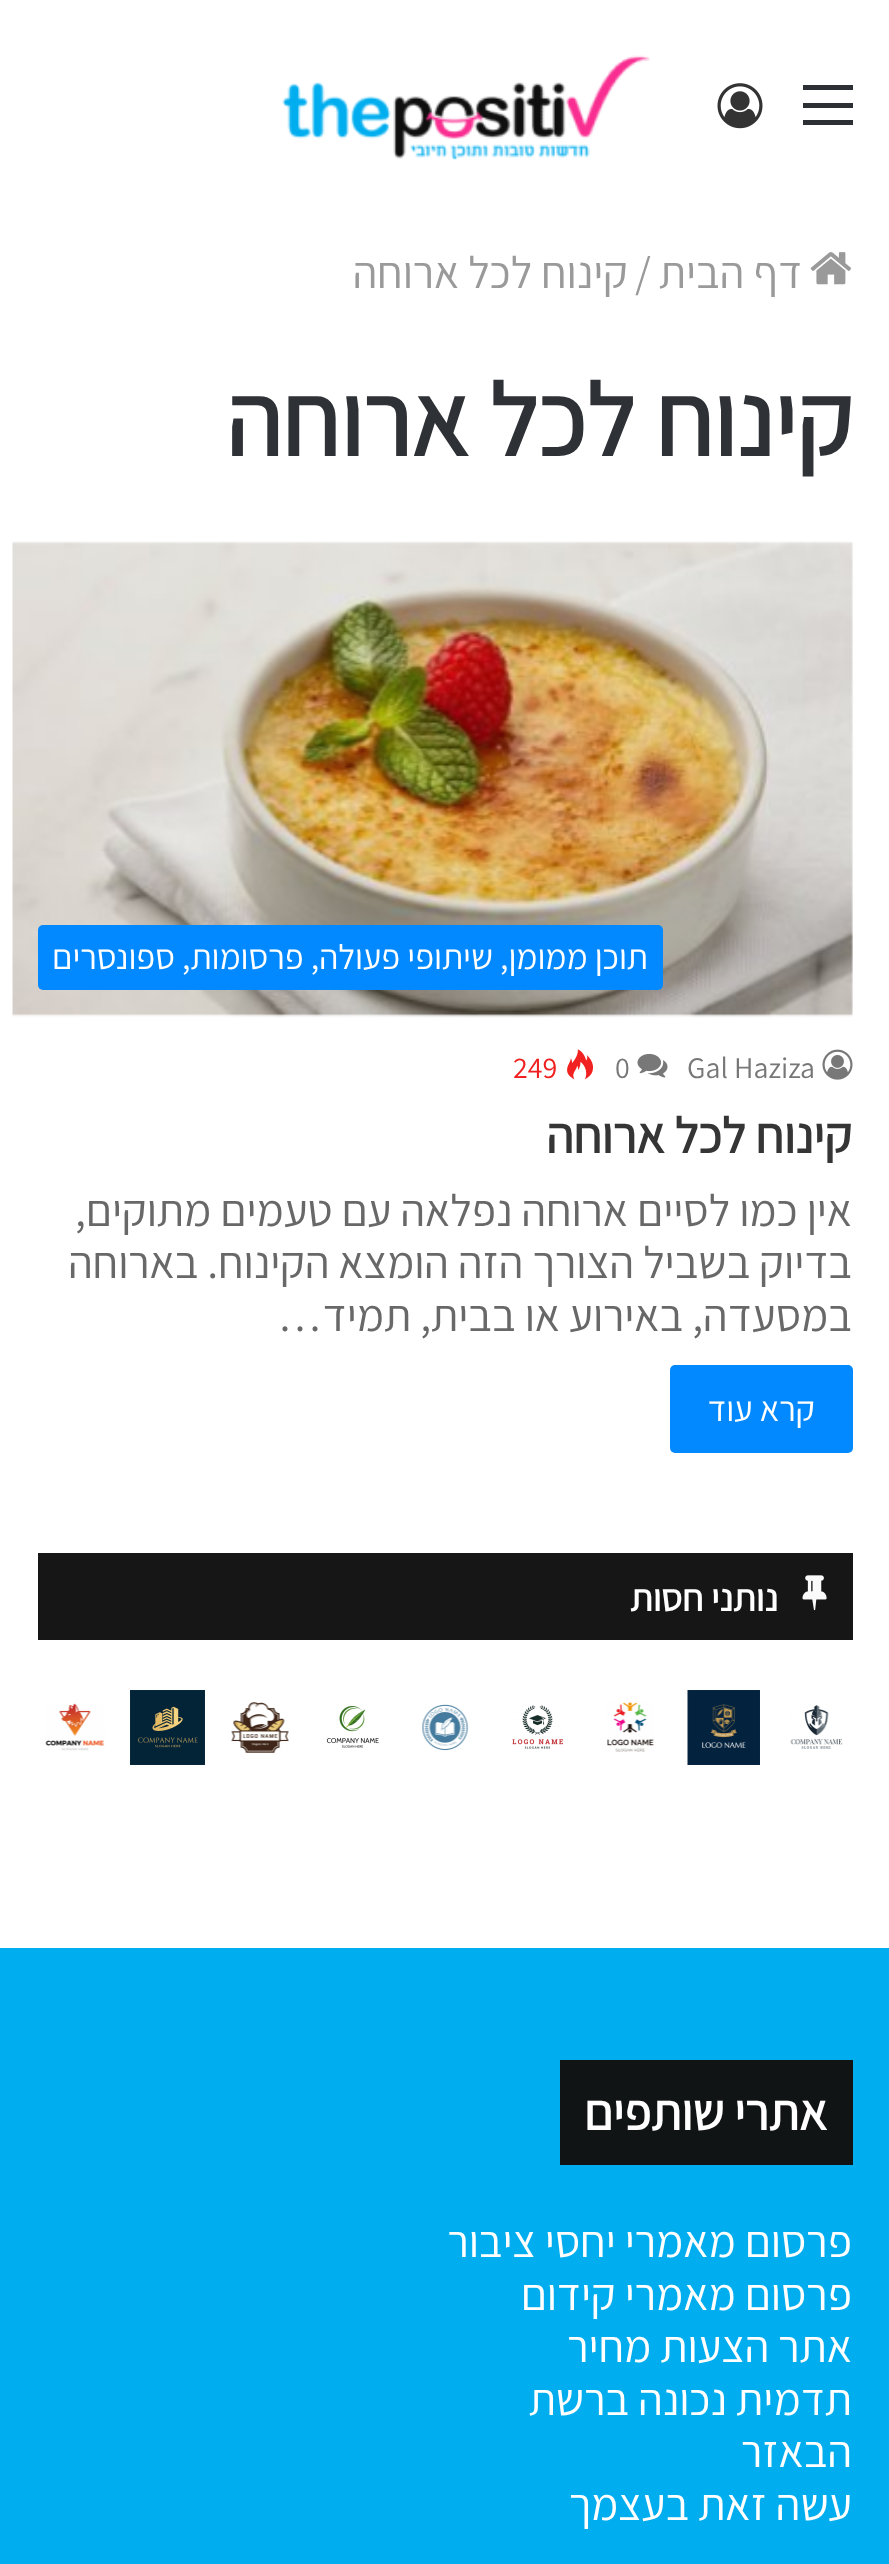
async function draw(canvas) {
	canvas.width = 889;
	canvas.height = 2564;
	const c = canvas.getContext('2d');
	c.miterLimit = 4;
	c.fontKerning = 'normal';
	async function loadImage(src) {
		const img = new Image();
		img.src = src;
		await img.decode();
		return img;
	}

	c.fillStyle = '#fff';
	c.fillRect(0, 0, 889, 2564);
	for (const [x, y, w, h, color] of [
		[803, 103, 50, 5, '#2c2f34'],
		[803, 85, 50, 5, '#2c2f34'],
		[803, 120, 50, 5, '#2c2f34'],
	]) {
		c.fillStyle = color;
		c.fillRect(x, y, w, h);
	}
	c.drawImage(await loadImage('img1.png'), 717, 83, 46, 46);
	c.drawImage(await loadImage('img2.png'), 282, 55, 368, 105);
	c.drawImage(await loadImage('img3.png'), 810, 252, 42, 33);
	c.direction = 'rtl';
	c.font = '45px Assistant';
	c.fillStyle = '#9a9a9a';
	c.fillText('דף הבית', 802, 288);
	c.direction = 'ltr';
	c.fillText('/', 635, 288);
	c.direction = 'rtl';
	c.fillText('קינוח לכל ארוחה', 628, 288);
	c.font = 'bold 102.5px Assistant';
	c.fillStyle = '#2e3136';
	c.fillText('קינוח לכל ארוחה', 853, 456);
	c.drawImage(await loadImage('img4.png'), 12, 541, 841, 477);
	c.fillStyle = '#0389ff';
	c.beginPath();
	c.roundRect(38, 925, 625, 65, 5);
	c.fill();
	c.font = '35px Assistant';
	c.fillStyle = '#fff';
	c.fillText('תוכן ממומן, שיתופי פעולה, פרסומות, ספונסרים', 648, 969);
	c.drawImage(await loadImage('img5.png'), 822, 1049, 31, 31);
	c.direction = 'ltr';
	c.font = '30px Assistant';
	c.fillStyle = '#777';
	c.fillText('Gal Haziza', 687, 1078);
	c.drawImage(await loadImage('img6.png'), 637, 1053, 31, 25);
	c.fillText('0', 615, 1078);
	c.drawImage(await loadImage('img7.png'), 567, 1049, 27, 31);
	c.fillStyle = '#f12020';
	c.fillText('249', 513, 1078);
	c.direction = 'rtl';
	c.font = 'bold 50px Assistant';
	c.fillStyle = '#353535';
	c.fillText('קינוח לכל ארוחה', 852, 1153);
	c.font = '45px Assistant';
	c.fillStyle = '#686868';
	for (const [text, x, y] of [
		['אין כמו לסיים ארוחה נפלאה עם טעמים מתוקים,', 852, 1226],
		['בדיוק בשביל הצורך הזה הומצא הקינוח. בארוחה', 852, 1278],
		['במסעדה, באירוע או בבית, תמיד…', 852, 1331],
	]) {
		c.fillText(text, x, y);
	}
	c.fillStyle = '#0389ff';
	c.beginPath();
	c.roundRect(670, 1365, 183, 88, 5);
	c.fill();
	c.font = '35px Assistant';
	c.fillStyle = '#fff';
	c.fillText('קרא עוד', 815, 1421);
	c.fillStyle = '#161616';
	c.fillRect(38, 1553, 815, 87);
	c.drawImage(await loadImage('img8.png'), 802, 1575, 25, 36);
	c.font = 'bold 37.5px Assistant';
	c.fillStyle = '#fff';
	c.fillText('נותני חסות', 778, 1611);
	c.drawImage(await loadImage('img9.png'), 790, 1705, 53, 44);
	c.drawImage(await loadImage('img10.png'), 687, 1690, 73, 75);
	c.drawImage(await loadImage('img11.png'), 607, 1702, 47, 50);
	c.drawImage(await loadImage('img12.png'), 512, 1705, 52, 44);
	c.drawImage(await loadImage('img13.png'), 421, 1704, 48, 47);
	c.drawImage(await loadImage('img14.png'), 326, 1705, 53, 43);
	c.drawImage(await loadImage('img15.png'), 231, 1702, 58, 51);
	c.drawImage(await loadImage('img16.png'), 130, 1690, 75, 75);
	c.drawImage(await loadImage('img17.png'), 45, 1703, 60, 48);
	c.fillStyle = '#00adee';
	c.fillRect(0, 1948, 889, 616);
	c.fillStyle = '#111415';
	c.fillRect(560, 2060, 293, 105);
	c.font = 'bold 50px Assistant';
	c.fillStyle = '#fff';
	c.fillText('אתרי שותפים', 827, 2130);
	c.font = '45px Assistant';
	for (const [text, x, y] of [
		['פרסום מאמרי יחסי ציבור', 852, 2257],
		['פרסום מאמרי קידום', 852, 2310],
		['אתר הצעות מחיר', 852, 2362],
		['תדמית נכונה ברשת', 852, 2415],
		['הבאזר', 852, 2467],
		['עשה זאת בעצמך', 852, 2520],
	]) {
		c.fillText(text, x, y);
	}
}

draw(document.querySelector('canvas'));
